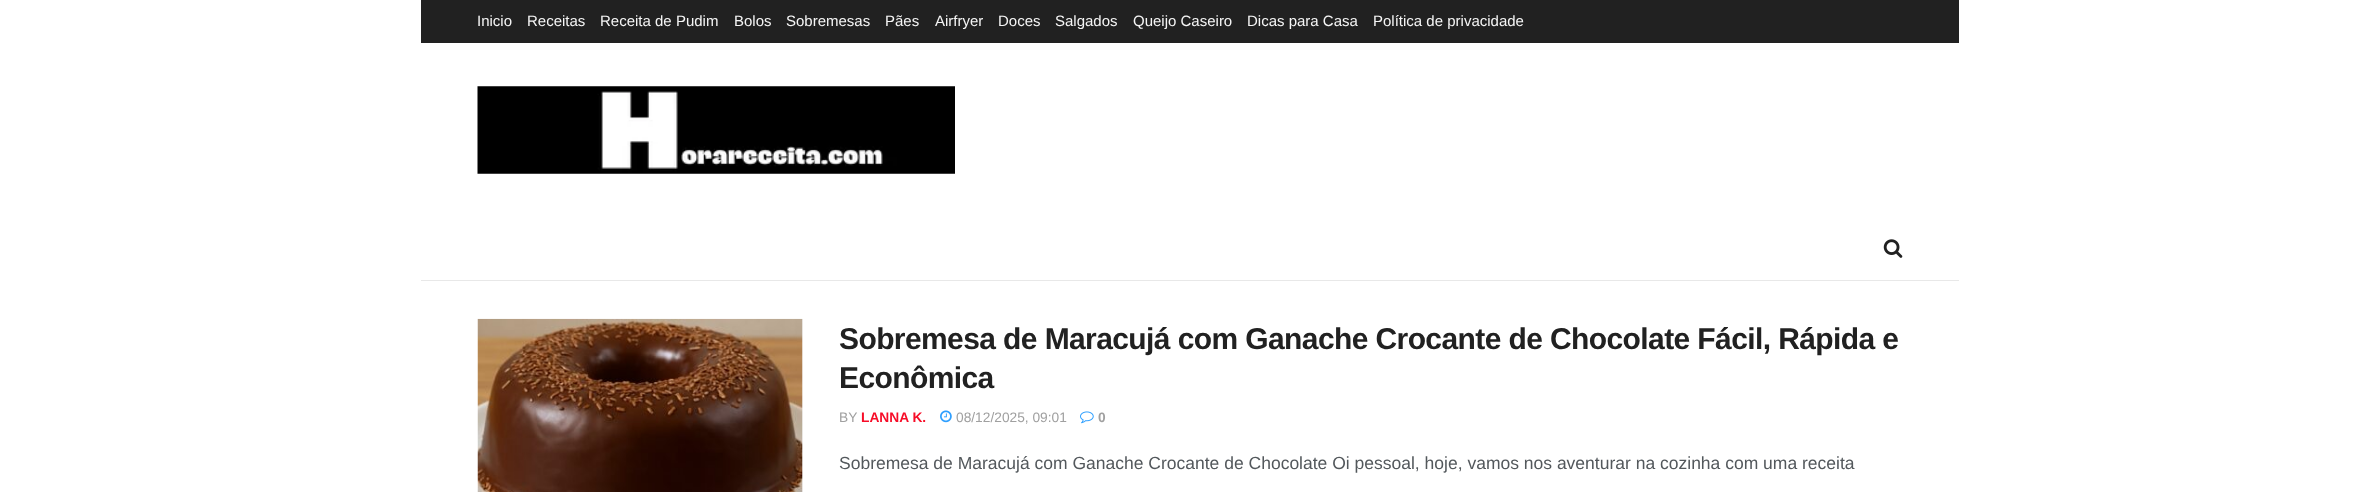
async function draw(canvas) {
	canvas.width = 2378;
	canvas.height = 492;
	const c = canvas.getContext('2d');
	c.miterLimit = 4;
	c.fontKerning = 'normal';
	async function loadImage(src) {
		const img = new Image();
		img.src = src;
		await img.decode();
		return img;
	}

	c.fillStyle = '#fff';
	c.fillRect(0, 0, 2378, 492);
	c.fillStyle = '#212121';
	c.fillRect(421, 0, 1538, 43);
	c.font = '15px Liberation Sans';
	c.fillStyle = '#f5f5f5';
	for (const [text, x, y] of [
		['Inicio', 477, 26],
		['Receitas', 527, 26],
		['Receita de Pudim', 600, 26],
		['Bolos', 734, 26],
		['Sobremesas', 786, 26],
		['Pães', 885, 26],
		['Airfryer', 935, 26],
		['Doces', 998, 26],
		['Salgados', 1055, 26],
		['Queijo Caseiro', 1133, 26],
		['Dicas para Casa', 1247, 26],
		['Política de privacidade', 1373, 26],
	]) {
		c.fillText(text, x, y);
	}
	c.drawImage(await loadImage('img1.png'), 477, 86, 478, 88);
	c.fillStyle = '#e8e8e8';
	c.fillRect(421, 280, 1538, 1);
	c.drawImage(await loadImage('img2.png'), 1883, 239, 20, 19);
	c.fillStyle = '#f7f7f7';
	c.fillRect(802, 319, 1, 173);
	c.drawImage(await loadImage('img3.png'), 477, 318, 326, 174);
	c.letterSpacing = '-0.6px';
	c.font = 'bold 30px Liberation Sans';
	c.fillStyle = '#212121';
	c.fillText('Sobremesa de Maracujá com Ganache Crocante de Chocolate Fácil, Rápida e', 839, 349);
	c.fillText('Econômica', 839, 388);
	c.letterSpacing = '0px';
	c.font = '13.75px Liberation Sans';
	c.fillStyle = '#a0a0a0';
	c.fillText('BY', 839, 422);
	c.font = 'bold 13.75px Liberation Sans';
	c.fillStyle = '#f70d28';
	c.fillText('LANNA K.', 861, 422);
	c.drawImage(await loadImage('img4.png'), 940, 410, 12, 13);
	c.font = '13.75px Liberation Sans';
	c.fillStyle = '#a0a0a0';
	c.fillText('08/12/2025, 09:01', 956, 422);
	c.drawImage(await loadImage('img5.png'), 1080, 411, 14, 13);
	c.font = 'bold 13.75px Liberation Sans';
	c.fillText('0', 1098, 422);
	c.font = '17.5px Liberation Sans';
	c.fillStyle = '#53585c';
	c.fillText('Sobremesa de Maracujá com Ganache Crocante de Chocolate Oi pessoal, hoje, vamos nos aventurar na cozinha com uma receita', 839, 469);
}

draw(document.querySelector('canvas'));
